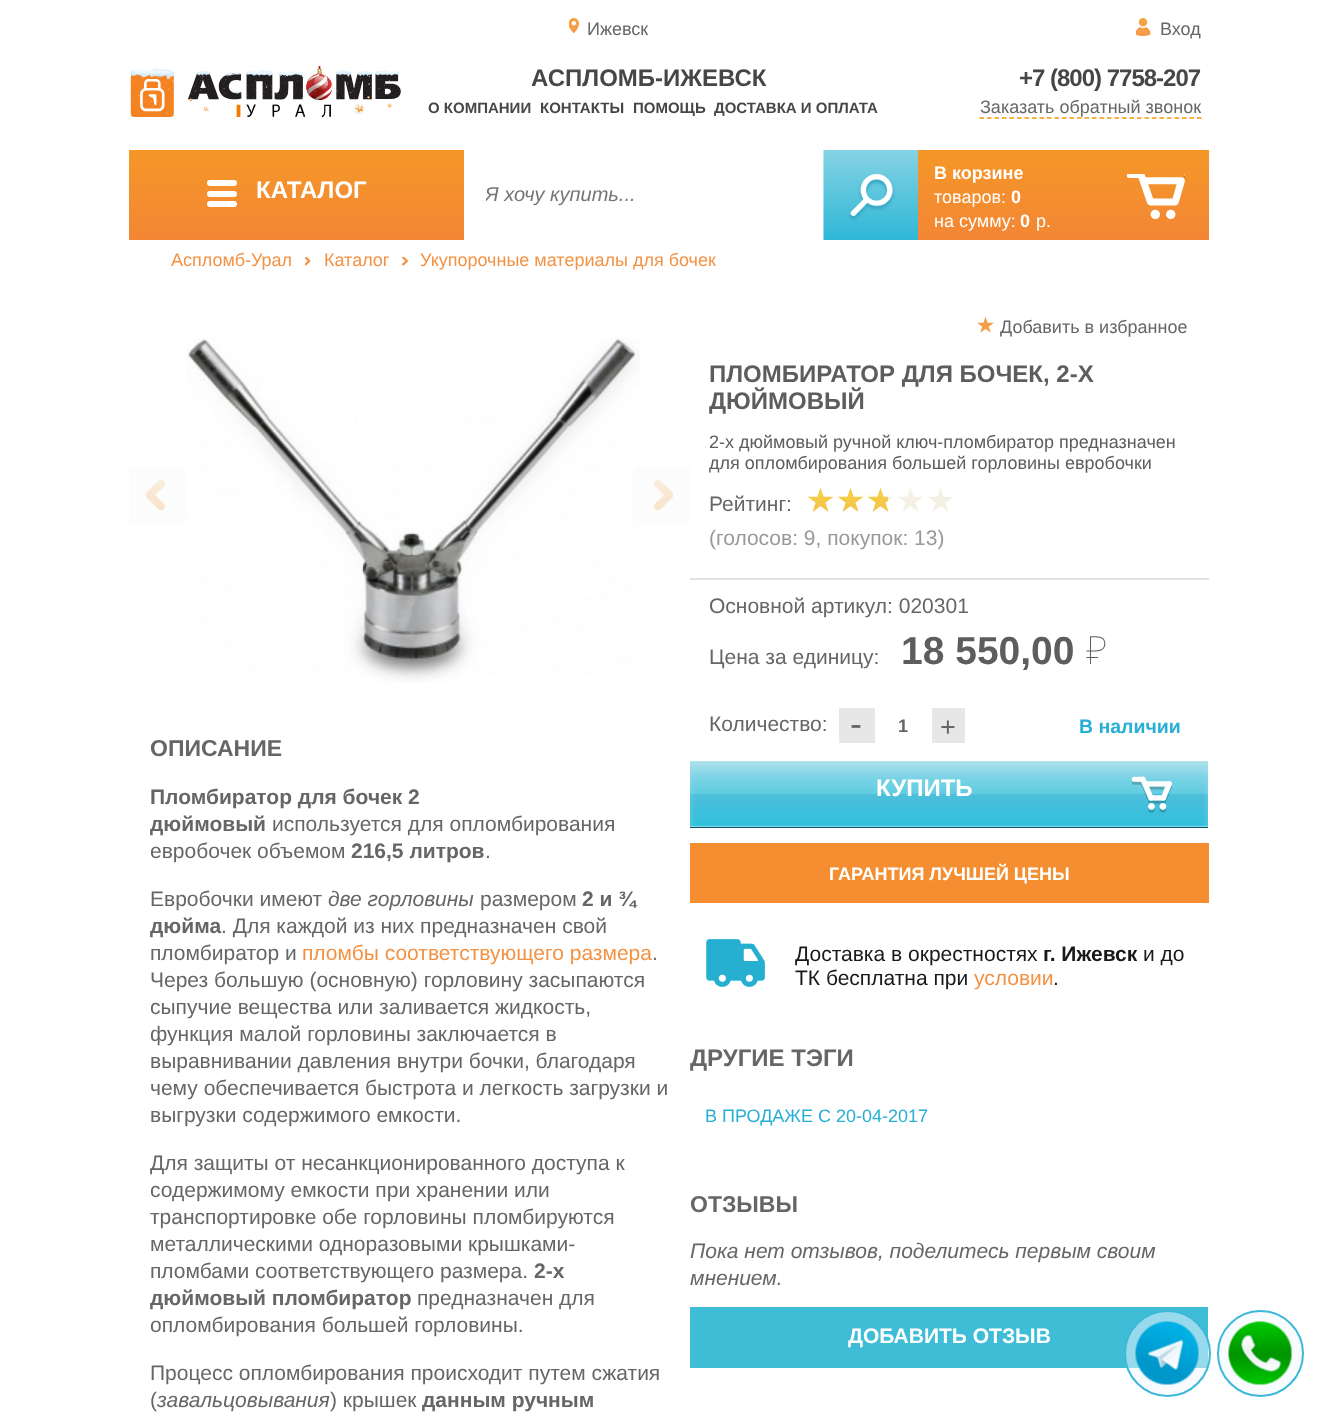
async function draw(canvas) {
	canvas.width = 1336;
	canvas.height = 1426;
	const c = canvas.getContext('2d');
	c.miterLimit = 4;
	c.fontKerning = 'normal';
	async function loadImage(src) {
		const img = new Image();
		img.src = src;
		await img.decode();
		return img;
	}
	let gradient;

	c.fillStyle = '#fff';
	c.fillRect(0, 0, 1336, 1426);
	c.drawImage(await loadImage('img1.png'), 569, 18, 10, 15);
	c.font = '18px Liberation Sans';
	c.fillStyle = '#666';
	c.fillText('Ижевск', 587, 35);
	c.drawImage(await loadImage('img2.png'), 1136, 18, 15, 18);
	c.fillText('Вход', 1160, 35);
	c.drawImage(await loadImage('img3.png'), 130, 66, 271, 51);
	c.font = 'bold 24px Liberation Sans';
	c.fillStyle = '#464646';
	c.fillText('АСПЛОМБ-ИЖЕВСК', 531, 86);
	c.font = 'bold 15px Liberation Sans';
	for (const [text, x, y] of [
		['О КОМПАНИИ', 428, 113],
		['КОНТАКТЫ', 540, 113],
		['ПОМОЩЬ', 633, 113],
		['ДОСТАВКА И ОПЛАТА', 714, 113],
	]) {
		c.fillText(text, x, y);
	}
	c.letterSpacing = '-1px';
	c.font = 'bold 24px Liberation Sans';
	c.fillText('+7 (800) 7758-207', 1019, 86);
	c.beginPath();
	c.moveTo(979.5, 118);
	c.lineTo(1201.5, 118);
	c.strokeStyle = '#f5970a';
	c.lineWidth = 1.5;
	c.setLineDash([4.5, 3]);
	c.stroke();
	c.letterSpacing = '0px';
	c.font = '18px Liberation Sans';
	c.fillStyle = '#666';
	c.fillText('Заказать обратный звонок', 980, 113);
	gradient = c.createLinearGradient(669, 150, 669, 240);
	gradient.addColorStop(0, '#f59728');
	gradient.addColorStop(1, '#f38635');
	c.fillStyle = gradient;
	c.fillRect(129, 150, 1080, 90);
	c.fillStyle = '#fff';
	c.beginPath();
	c.roundRect(207, 180, 30, 6, 3);
	c.fill();
	c.beginPath();
	c.roundRect(207, 191, 30, 6, 3);
	c.fill();
	c.beginPath();
	c.roundRect(207, 201, 30, 6, 3);
	c.fill();
	c.font = 'bold 24px Liberation Sans';
	c.fillText('КАТАЛОГ', 256, 198);
	c.fillRect(464, 150, 360, 90);
	c.save();
	c.beginPath();
	c.rect(486, 183, 386, 23);
	c.clip();
	c.font = 'italic 20px Liberation Sans';
	c.fillStyle = '#757575';
	c.fillText('Я хочу купить...', 485, 201);
	c.restore();
	c.drawImage(await loadImage('img4.png'), 823, 150, 95, 90);
	c.font = 'bold 18px Liberation Sans';
	c.fillText('В корзине', 934, 179);
	c.drawImage(await loadImage('img5.png'), 1127, 174, 58, 45);
	c.font = '18px Liberation Sans';
	c.fillText('товаров:', 934, 203);
	c.font = 'bold 18px Liberation Sans';
	c.fillText('0', 1011, 203);
	c.font = '18px Liberation Sans';
	c.fillText('на сумму:', 934, 227);
	c.font = 'bold 18px Liberation Sans';
	c.fillText('0', 1020, 227);
	c.font = '18px Liberation Sans';
	c.fillText('р.', 1036, 227);
	c.fillStyle = '#f49244';
	c.fillText('Аспломб-Урал', 171, 266);
	c.drawImage(await loadImage('img6.png'), 305, 257, 6, 9);
	c.fillText('Каталог', 324, 266);
	c.drawImage(await loadImage('img7.png'), 402, 257, 6, 9);
	c.fillText('Укупорочные материалы для бочек', 420, 266);
	c.drawImage(await loadImage('img8.png'), 186, 338, 454, 345);
	c.fillStyle = '#fcfcfc';
	c.beginPath();
	c.roundRect(129, 467, 57, 57, [0, 8, 8, 0]);
	c.fill();
	c.drawImage(await loadImage('img9.png'), 145, 480, 20, 30);
	c.beginPath();
	c.roundRect(633, 467, 57, 57, [8, 0, 0, 8]);
	c.fill();
	c.drawImage(await loadImage('img10.png'), 654, 480, 20, 30);
	c.drawImage(await loadImage('img11.png'), 977, 317, 17, 16);
	c.fillStyle = '#666';
	c.fillText('Добавить в избранное', 1000, 333);
	c.font = 'bold 24px Liberation Sans';
	c.fillStyle = '#5d5d5d';
	c.fillText('ПЛОМБИРАТОР ДЛЯ БОЧЕК, 2-Х', 709, 382);
	c.fillText('ДЮЙМОВЫЙ', 709, 409);
	c.font = '18px Liberation Sans';
	c.fillText('2-х дюймовый ручной ключ-пломбиратор предназначен', 709, 448);
	c.fillText('для опломбирования большей горловины евробочки', 709, 469);
	c.font = '21px Liberation Sans';
	c.fillStyle = '#666';
	c.fillText('Рейтинг:', 709, 511);
	c.drawImage(await loadImage('img13.png'), 808, 488, 145, 24);
	c.drawImage(await loadImage('img12.png'), 807, 488, 81, 24);
	c.fillStyle = '#999';
	c.fillText('(голосов: 9, покупок: 13)', 709, 545);
	c.fillStyle = '#e2e2e2';
	c.fillRect(690, 578, 519, 2);
	c.fillStyle = '#666';
	c.fillText('Основной артикул: 020301', 709, 613);
	c.fillText('Цена за единицу:', 709, 664);
	c.font = 'bold 39px Liberation Sans';
	c.fillStyle = '#5d5d5d';
	c.fillText('18 550,00', 901, 664);
	c.font = '100 39px Noto Sans';
	c.fillText('₽', 1086, 664);
	c.font = '21px Liberation Sans';
	c.fillStyle = '#666';
	c.fillText('Количество:', 709, 731);
	c.fillStyle = '#e7e7e7';
	c.fillRect(839, 708, 126, 35);
	c.font = '36px Liberation Sans';
	c.fillStyle = '#666';
	c.fillText('-', 850, 736);
	c.fillStyle = '#fff';
	c.fillRect(875, 708, 57, 35);
	c.font = 'bold 18px Liberation Sans';
	c.fillStyle = '#666';
	c.fillText('1', 898, 732);
	c.font = '27px Liberation Sans';
	c.fillText('+', 940, 736);
	c.font = 'bold 19.5px Liberation Sans';
	c.fillStyle = '#27afd5';
	c.fillText('В наличии', 1079, 733);
	gradient = c.createLinearGradient(949, 761, 949, 828);
	gradient.addColorStop(0.01, '#b0e5ed');
	gradient.addColorStop(0.02, '#abe1ed');
	gradient.addColorStop(0.25, '#7ad3e5');
	gradient.addColorStop(0.5, '#5fcce1');
	gradient.addColorStop(0.5, '#4dbfda');
	gradient.addColorStop(0.96, '#31c0dd');
	gradient.addColorStop(0.98, '#90dae7');
	c.fillStyle = gradient;
	c.fillRect(690, 761, 518, 66);
	gradient = c.createLinearGradient(690, 794, 1208, 794);
	gradient.addColorStop(0, '#a4dfed33');
	gradient.addColorStop(0.01, '#a4dfed00');
	gradient.addColorStop(0.99, '#b0daef00');
	gradient.addColorStop(1, '#b0daef33');
	c.fillStyle = gradient;
	c.fillRect(690, 765, 518, 62);
	gradient = c.createLinearGradient(949, 761, 949, 828);
	gradient.addColorStop(0, '#00000000');
	gradient.addColorStop(0.98, '#0c526c00');
	gradient.addColorStop(0.98, '#0c526c');
	c.fillStyle = gradient;
	c.fillRect(690, 827, 518, 1);
	c.font = 'bold 24px Liberation Sans';
	c.fillStyle = '#fff';
	c.fillText('КУПИТЬ', 876, 796);
	c.drawImage(await loadImage('img14.png'), 1131, 776, 41, 37);
	c.fillStyle = '#f48e30';
	c.fillRect(690, 843, 519, 60);
	c.font = 'bold 18px Liberation Sans';
	c.fillStyle = '#fff';
	c.fillText('ГАРАНТИЯ ЛУЧШЕЙ ЦЕНЫ', 829, 880);
	c.drawImage(await loadImage('img15.png'), 706, 939, 59, 48);
	c.font = '21px Liberation Sans';
	c.fillStyle = '#191919';
	c.fillText('Доставка в окрестностях', 795, 961);
	c.font = 'bold 21px Liberation Sans';
	c.fillText('г. Ижевск', 1043, 961);
	c.font = '21px Liberation Sans';
	c.fillText('и до', 1143, 961);
	c.fillText('ТК бесплатна при', 795, 985);
	c.fillStyle = '#f49244';
	c.fillText('условии', 974, 985);
	c.fillStyle = '#191919';
	c.fillText('.', 1053, 985);
	c.font = 'bold 24px Liberation Sans';
	c.fillStyle = '#666';
	c.fillText('ДРУГИЕ ТЭГИ', 690, 1066);
	c.font = '18px Liberation Sans';
	c.fillStyle = '#27afd5';
	c.fillText('В ПРОДАЖЕ С 20-04-2017', 705, 1122);
	c.font = 'bold 23px Liberation Sans';
	c.fillStyle = '#666';
	c.fillText('ОПИСАНИЕ', 150, 756);
	c.font = 'bold 21px Liberation Sans';
	c.fillText('Пломбиратор для бочек 2', 150, 804);
	c.fillText('дюймовый', 150, 831);
	c.font = '21px Liberation Sans';
	c.fillText('используется для опломбирования', 272, 831);
	c.fillText('евробочек объемом', 150, 858);
	c.font = 'bold 21px Liberation Sans';
	c.fillText('216,5 литров', 351, 858);
	c.font = '21px Liberation Sans';
	c.fillText('.', 485, 858);
	c.fillText('Евробочки имеют', 150, 906);
	c.font = 'italic 21px Liberation Sans';
	c.fillText('две горловины', 328, 906);
	c.font = '21px Liberation Sans';
	c.fillText('размером', 480, 906);
	c.font = 'bold 21px Liberation Sans';
	c.fillText('2 и ¾', 582, 906);
	c.fillText('дюйма', 150, 933);
	c.font = '21px Liberation Sans';
	c.fillText('. Для каждой из них предназначен свой', 221, 933);
	c.fillText('пломбиратор и', 150, 960);
	c.fillStyle = '#f49244';
	c.fillText('пломбы соответствующего размера', 302, 960);
	c.fillStyle = '#666';
	for (const [text, x, y] of [
		['.', 652, 960],
		['Через большую (основную) горловину засыпаются', 150, 987],
		['сыпучие вещества или заливается жидкость,', 150, 1014],
		['функция малой горловины заключается в', 150, 1041],
		['выравнивании давления внутри бочки, благодаря', 150, 1068],
		['чему обеспечивается быстрота и легкость загрузки и', 150, 1095],
		['выгрузки содержимого емкости.', 150, 1122],
		['Для защиты от несанкционированного доступа к', 150, 1170],
		['содержимому емкости при хранении или', 150, 1197],
		['транспортировке обе горловины пломбируются', 150, 1224],
		['металлическими одноразовыми крышками-', 150, 1251],
		['пломбами соответствующего размера.', 150, 1278],
	]) {
		c.fillText(text, x, y);
	}
	c.font = 'bold 21px Liberation Sans';
	c.fillText('2-х', 534, 1278);
	c.fillText('дюймовый пломбиратор', 150, 1305);
	c.font = '21px Liberation Sans';
	for (const [text, x, y] of [
		['предназначен для', 417, 1305],
		['опломбирования большей горловины.', 150, 1332],
		['Процесс опломбирования происходит путем сжатия', 150, 1380],
		['(', 150, 1407],
	]) {
		c.fillText(text, x, y);
	}
	c.font = 'italic 21px Liberation Sans';
	c.fillText('завальцовывания', 157, 1407);
	c.font = '21px Liberation Sans';
	c.fillText(') крышек', 330, 1407);
	c.font = 'bold 21px Liberation Sans';
	c.fillText('данным ручным', 422, 1407);
	c.font = 'bold 23px Liberation Sans';
	c.fillText('ОТЗЫВЫ', 690, 1212);
	c.font = 'italic 21px Liberation Sans';
	c.fillText('Пока нет отзывов, поделитесь первым своим', 690, 1258);
	c.fillText('мнением.', 690, 1285);
	c.fillStyle = '#3fbdd6';
	c.beginPath();
	c.moveTo(690, 1366);
	c.lineTo(690, 1368);
	c.lineTo(1208, 1368);
	c.lineTo(1208, 1308);
	c.lineTo(1208, 1366);
	c.closePath();
	c.fill();
	c.fillRect(690, 1307, 518, 59);
	c.font = 'bold 21px Liberation Sans';
	c.fillStyle = '#fff';
	c.fillText('ДОБАВИТЬ ОТЗЫВ', 848, 1343);
	c.fillStyle = '#f0f8ff80';
	c.beginPath();
	c.arc(1167.5, 1353.5, 42.5, 0, 2 * Math.PI);
	c.fill();
	c.strokeStyle = '#3db8d9';
	c.lineWidth = 2;
	c.setLineDash([]);
	c.stroke();
	c.drawImage(await loadImage('img16.png'), 1135, 1321, 64, 64);
	c.fillStyle = '#f8fcff';
	c.beginPath();
	c.arc(1260.5, 1353.5, 42.5, 0, 2 * Math.PI);
	c.fill();
	c.stroke();
	c.drawImage(await loadImage('img17.png'), 1228, 1321, 64, 64);
}

draw(document.querySelector('canvas'));
